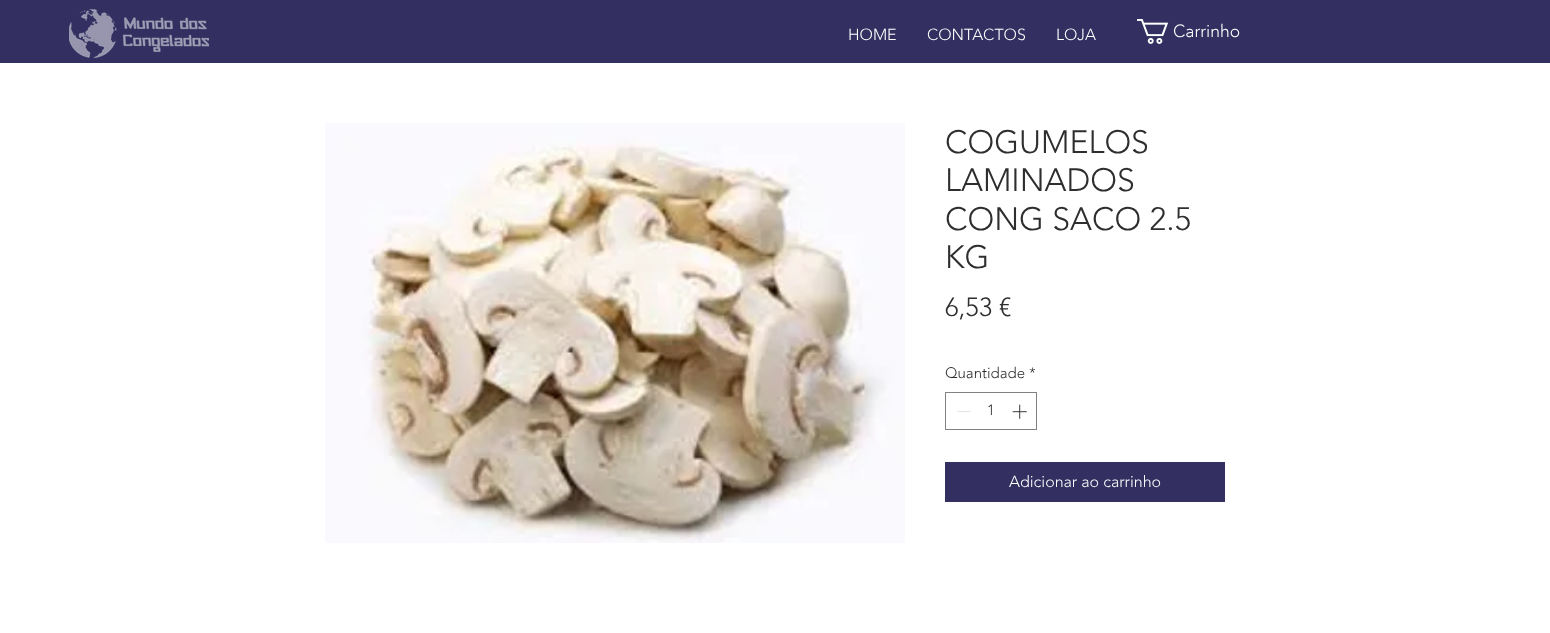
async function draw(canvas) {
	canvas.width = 1550;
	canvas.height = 633;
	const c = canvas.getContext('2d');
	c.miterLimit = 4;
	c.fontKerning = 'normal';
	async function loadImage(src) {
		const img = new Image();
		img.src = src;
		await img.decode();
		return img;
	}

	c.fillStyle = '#fff';
	c.fillRect(0, 0, 1550, 633);
	c.fillStyle = '#332f60';
	c.fillRect(0, 0, 1550, 63);
	c.drawImage(await loadImage('img1.png'), 69, 9, 140, 49);
	c.font = '300 16px "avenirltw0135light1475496"';
	c.fillStyle = '#fff';
	for (const [text, x, y] of [
		['HOME', 848, 40],
		['CONTACTOS', 927, 40],
		['LOJA', 1056, 40],
	]) {
		c.fillText(text, x, y);
	}
	c.drawImage(await loadImage('img2.png'), 1137, 19, 32, 25);
	c.font = '300 17.5px "avenirltw0135light1475496"';
	c.fillText('Carrinho', 1173, 37);
	c.drawImage(await loadImage('img3.png'), 325, 123, 580, 420);
	c.font = '300 32px "avenirltw0135light1475496"';
	c.fillStyle = '#2f2e2e';
	for (const [text, x, y] of [
		['COGUMELOS', 945, 153],
		['LAMINADOS', 945, 191],
		['CONG SACO 2.5', 945, 230],
		['KG', 945, 268],
	]) {
		c.fillText(text, x, y);
	}
	c.font = '300 26px "avenirltw0135light1475496"';
	c.fillText('6,53 €', 945, 316);
	c.font = '300 15px "avenirltw0135light1475496"';
	c.fillText('Quantidade *', 945, 378);
	c.strokeStyle = '#828282';
	c.strokeRect(945.5, 392.5, 91, 37);
	c.fillStyle = '#e3e3e3';
	c.fillRect(957, 411, 14, 1);
	c.fillStyle = '#2f2e2e';
	c.fillText('1', 987, 415);
	c.drawImage(await loadImage('img4.png'), 1012, 404, 15, 15);
	c.fillStyle = '#332f60';
	c.fillRect(945, 462, 280, 40);
	c.font = '300 16px "avenirltw0135light1475496"';
	c.fillStyle = '#fff';
	c.fillText('Adicionar ao carrinho', 1009, 487);
}

draw(document.querySelector('canvas'));
